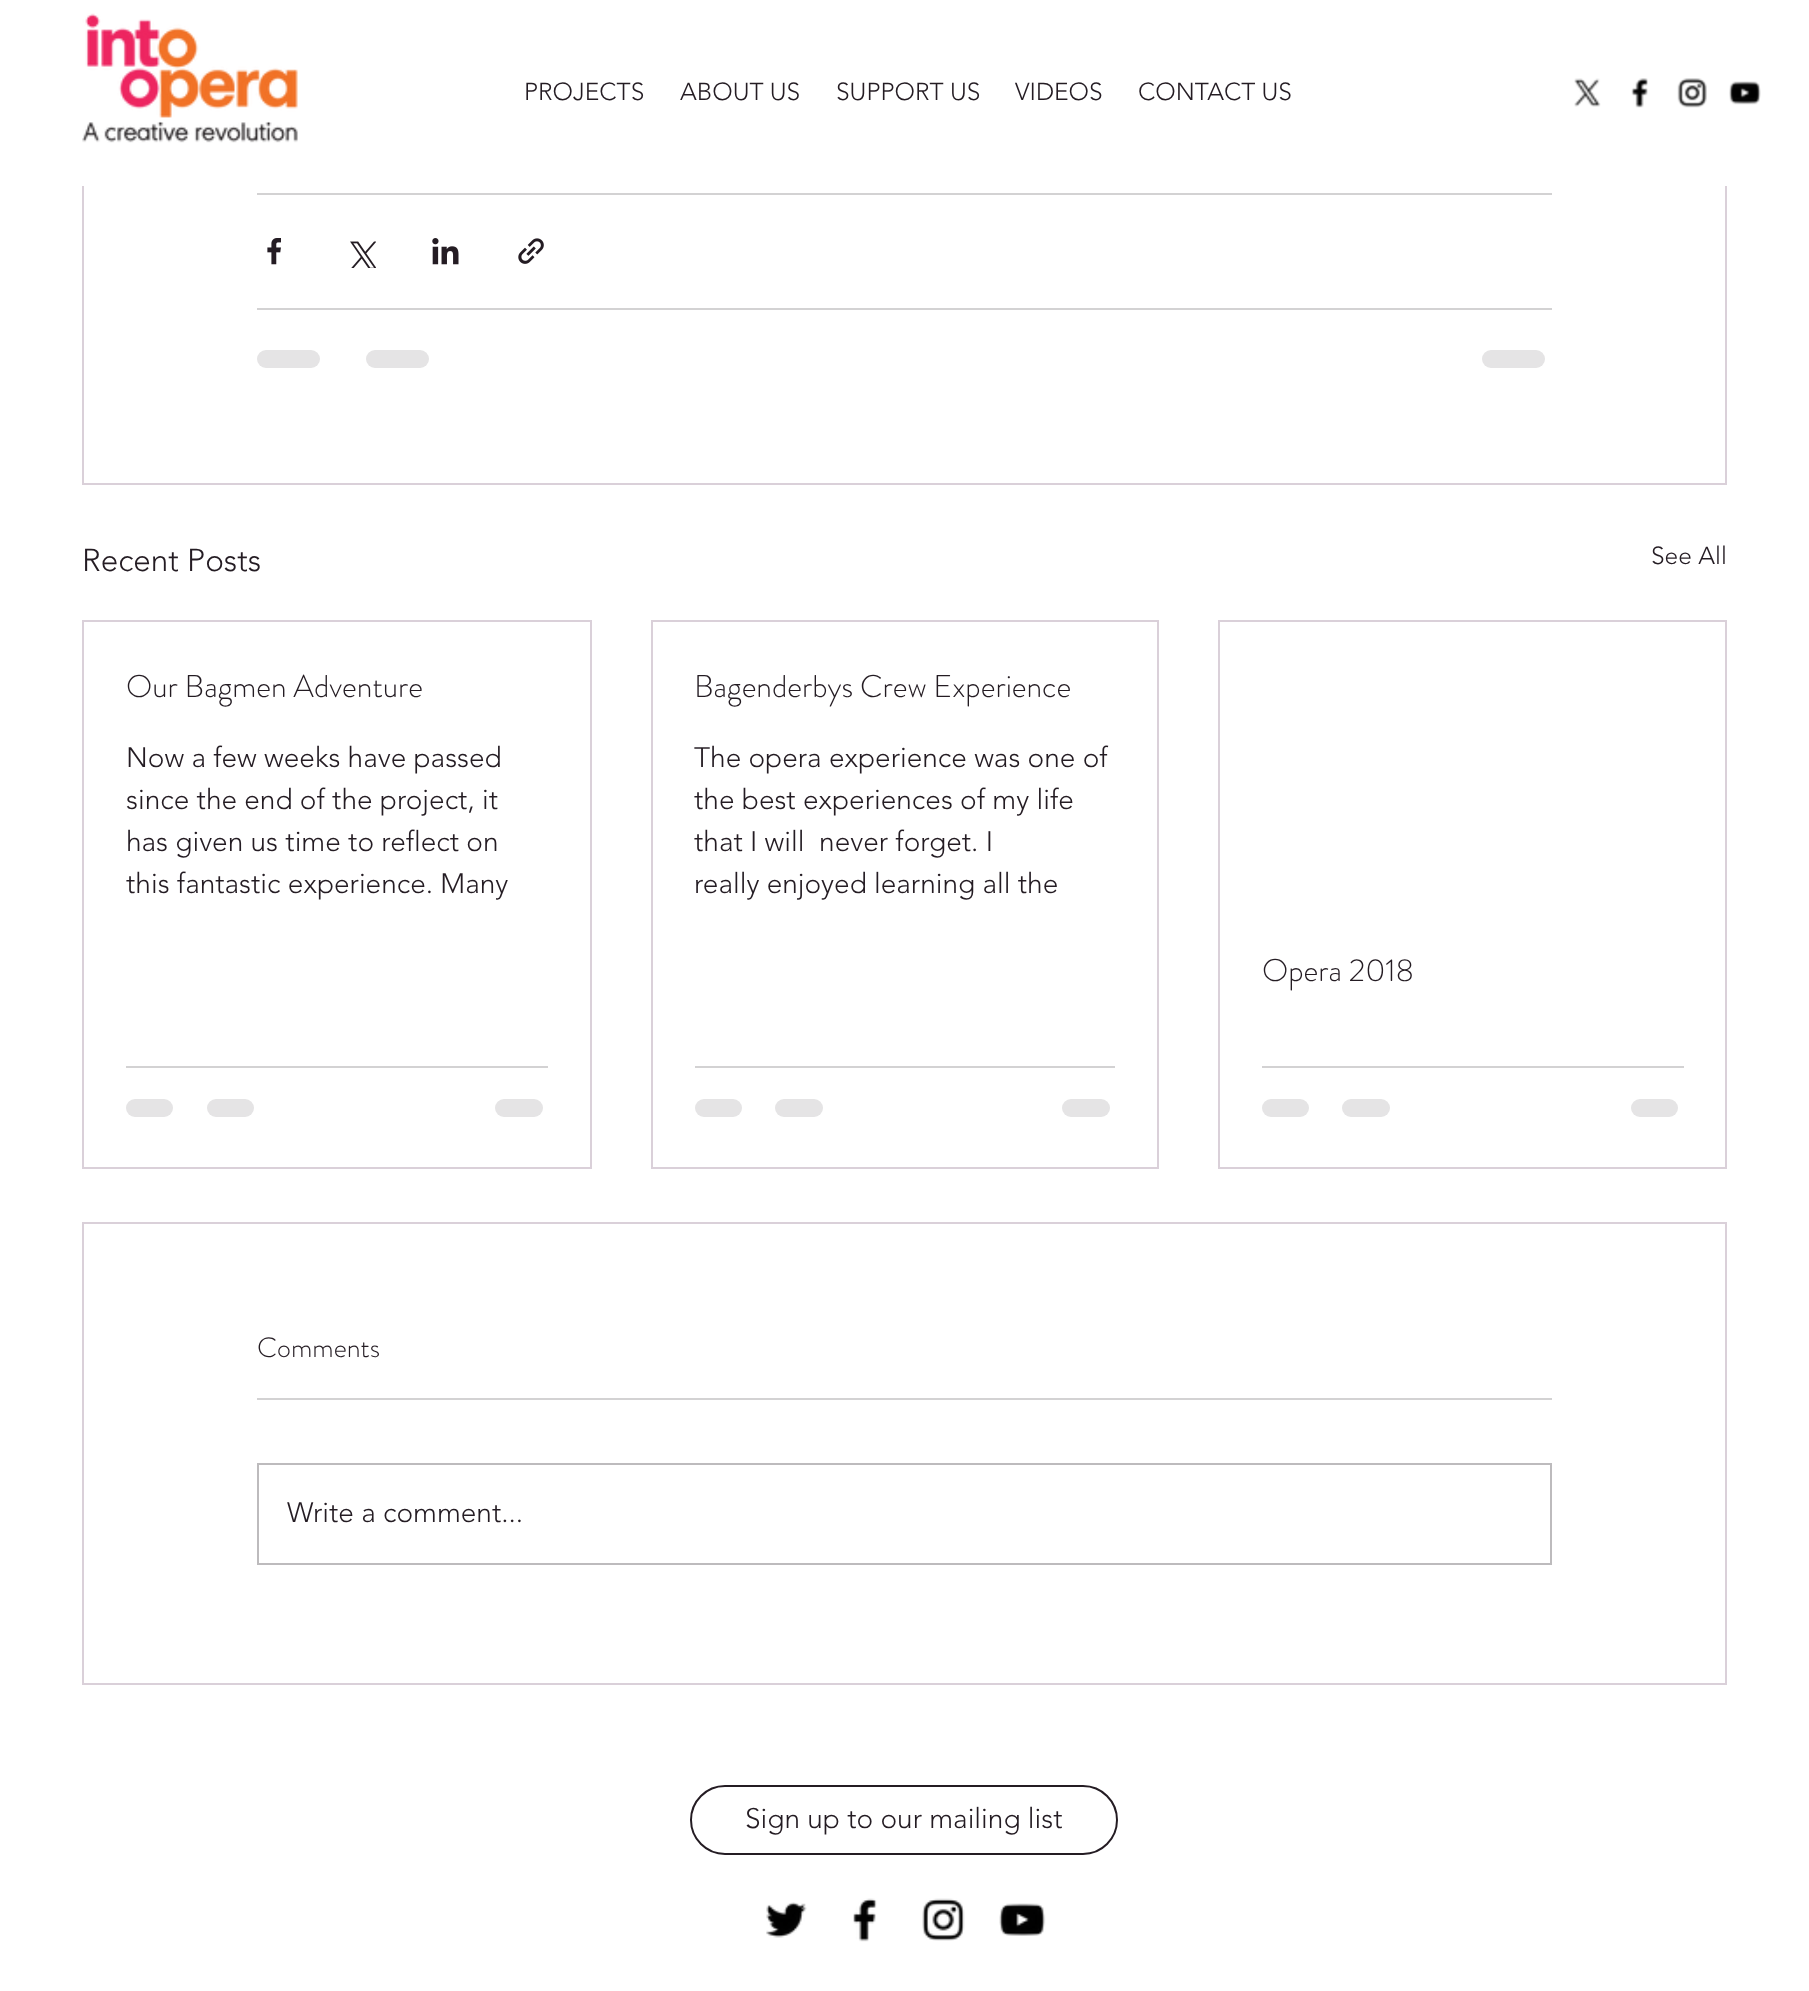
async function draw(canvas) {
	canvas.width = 1809;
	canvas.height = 1991;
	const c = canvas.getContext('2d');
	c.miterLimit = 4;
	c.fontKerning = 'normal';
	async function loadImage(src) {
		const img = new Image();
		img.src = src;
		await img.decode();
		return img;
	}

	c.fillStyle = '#fff';
	c.fillRect(0, 0, 1809, 1991);
	c.strokeStyle = '#dad0d9';
	c.lineWidth = 2;
	c.strokeRect(83, -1, 1643, 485);
	c.fillRect(82, 0, 1645, 186);
	c.drawImage(await loadImage('img1.png'), 82, 13, 216, 130);
	c.font = '300 24.5px "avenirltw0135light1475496"';
	c.fillStyle = '#241c23';
	for (const [text, x, y] of [
		['PROJECTS', 524, 100],
		['ABOUT US', 680, 100],
		['SUPPORT US', 836, 100],
		['VIDEOS', 1015, 100],
		['CONTACT US', 1138, 100],
	]) {
		c.fillText(text, x, y);
	}
	c.drawImage(await loadImage('img2.png'), 1574, 78, 27, 29);
	c.drawImage(await loadImage('img3.png'), 1631, 78, 17, 30);
	c.drawImage(await loadImage('img4.png'), 1677, 78, 30, 30);
	c.drawImage(await loadImage('img5.png'), 1729, 81, 32, 24);
	c.fillStyle = '#d3d2d3';
	c.fillRect(257, 193, 1295, 2);
	c.drawImage(await loadImage('img6.png'), 267, 238, 14, 27);
	c.drawImage(await loadImage('img7.png'), 350, 241, 26, 27);
	c.drawImage(await loadImage('img8.png'), 432, 238, 27, 27);
	c.drawImage(await loadImage('img9.png'), 518, 238, 26, 26);
	c.fillRect(257, 308, 1295, 2);
	c.fillStyle = '#e5e4e5';
	c.beginPath();
	c.roundRect(257, 350, 63, 18, 9);
	c.fill();
	c.beginPath();
	c.roundRect(366, 350, 63, 18, 9);
	c.fill();
	c.beginPath();
	c.roundRect(1482, 350, 63, 18, 9);
	c.fill();
	c.font = '300 31.5px "avenirltw0135light1475496"';
	c.fillStyle = '#241c23';
	c.fillText('Recent Posts', 82, 571);
	c.font = '300 24.5px "avenirltw0135light1475496"';
	c.fillText('See All', 1651, 564);
	c.strokeRect(83, 621, 508, 547);
	c.font = '300 31.5px "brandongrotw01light"';
	c.fillText('Our Bagmen Adventure', 126, 697);
	c.font = '300 28px "avenirltw0135light1475496"';
	for (const [text, x, y] of [
		['Now a few weeks have passed', 126, 767],
		['since the end of the project, it', 126, 809],
		['has given us time to reflect on', 126, 851],
		['this fantastic experience. Many', 126, 893],
	]) {
		c.fillText(text, x, y);
	}
	c.fillStyle = '#d3d2d3';
	c.fillRect(126, 1066, 422, 2);
	c.fillStyle = '#e5e4e5';
	c.beginPath();
	c.roundRect(126, 1099, 47, 18, 9);
	c.fill();
	c.beginPath();
	c.roundRect(207, 1099, 47, 18, 9);
	c.fill();
	c.beginPath();
	c.roundRect(495, 1099, 48, 18, 9);
	c.fill();
	c.strokeRect(652, 621, 506, 547);
	c.font = '300 31.5px "brandongrotw01light"';
	c.fillStyle = '#241c23';
	c.fillText('Bagenderbys Crew Experience', 694, 697);
	c.font = '300 28px "avenirltw0135light1475496"';
	for (const [text, x, y] of [
		['The opera experience was one of', 694, 767],
		['the best experiences of my life', 694, 809],
		['that I will  never forget. I', 694, 851],
		['really enjoyed learning all the', 694, 893],
	]) {
		c.fillText(text, x, y);
	}
	c.fillStyle = '#d3d2d3';
	c.fillRect(695, 1066, 420, 2);
	c.fillStyle = '#e5e4e5';
	c.beginPath();
	c.roundRect(695, 1099, 47, 18, 9);
	c.fill();
	c.beginPath();
	c.roundRect(775, 1099, 48, 18, 9);
	c.fill();
	c.beginPath();
	c.roundRect(1062, 1099, 48, 18, 9);
	c.fill();
	c.strokeRect(1219, 621, 507, 547);
	c.font = '300 31.5px "brandongrotw01light"';
	c.fillStyle = '#241c23';
	c.fillText('Opera 2018', 1262, 981);
	c.fillStyle = '#d3d2d3';
	c.fillRect(1262, 1066, 422, 2);
	c.fillStyle = '#e5e4e5';
	c.beginPath();
	c.roundRect(1262, 1099, 47, 18, 9);
	c.fill();
	c.beginPath();
	c.roundRect(1342, 1099, 48, 18, 9);
	c.fill();
	c.beginPath();
	c.roundRect(1631, 1099, 47, 18, 9);
	c.fill();
	c.strokeRect(83, 1223, 1643, 461);
	c.font = '300 28px "brandongrotw01light"';
	c.fillStyle = '#241c23';
	c.fillText('Comments', 257, 1357);
	c.fillStyle = '#d3d2d3';
	c.fillRect(257, 1398, 1295, 2);
	c.strokeStyle = '#bdbbbd';
	c.strokeRect(258, 1464, 1293, 100);
	c.font = '300 28px "avenirltw0135light1475496"';
	c.fillStyle = '#241c23';
	c.fillText('Write a comment...', 287, 1522);
	c.beginPath();
	c.roundRect(691, 1786, 426, 68, 34);
	c.strokeStyle = '#241c23';
	c.stroke();
	c.fillText('Sign up to our mailing list', 745, 1828);
	c.drawImage(await loadImage('img10.png'), 766, 1902, 41, 36);
	c.drawImage(await loadImage('img11.png'), 853, 1898, 24, 44);
	c.drawImage(await loadImage('img12.png'), 922, 1898, 43, 43);
	c.drawImage(await loadImage('img13.png'), 999, 1903, 47, 33);
}

draw(document.querySelector('canvas'));
